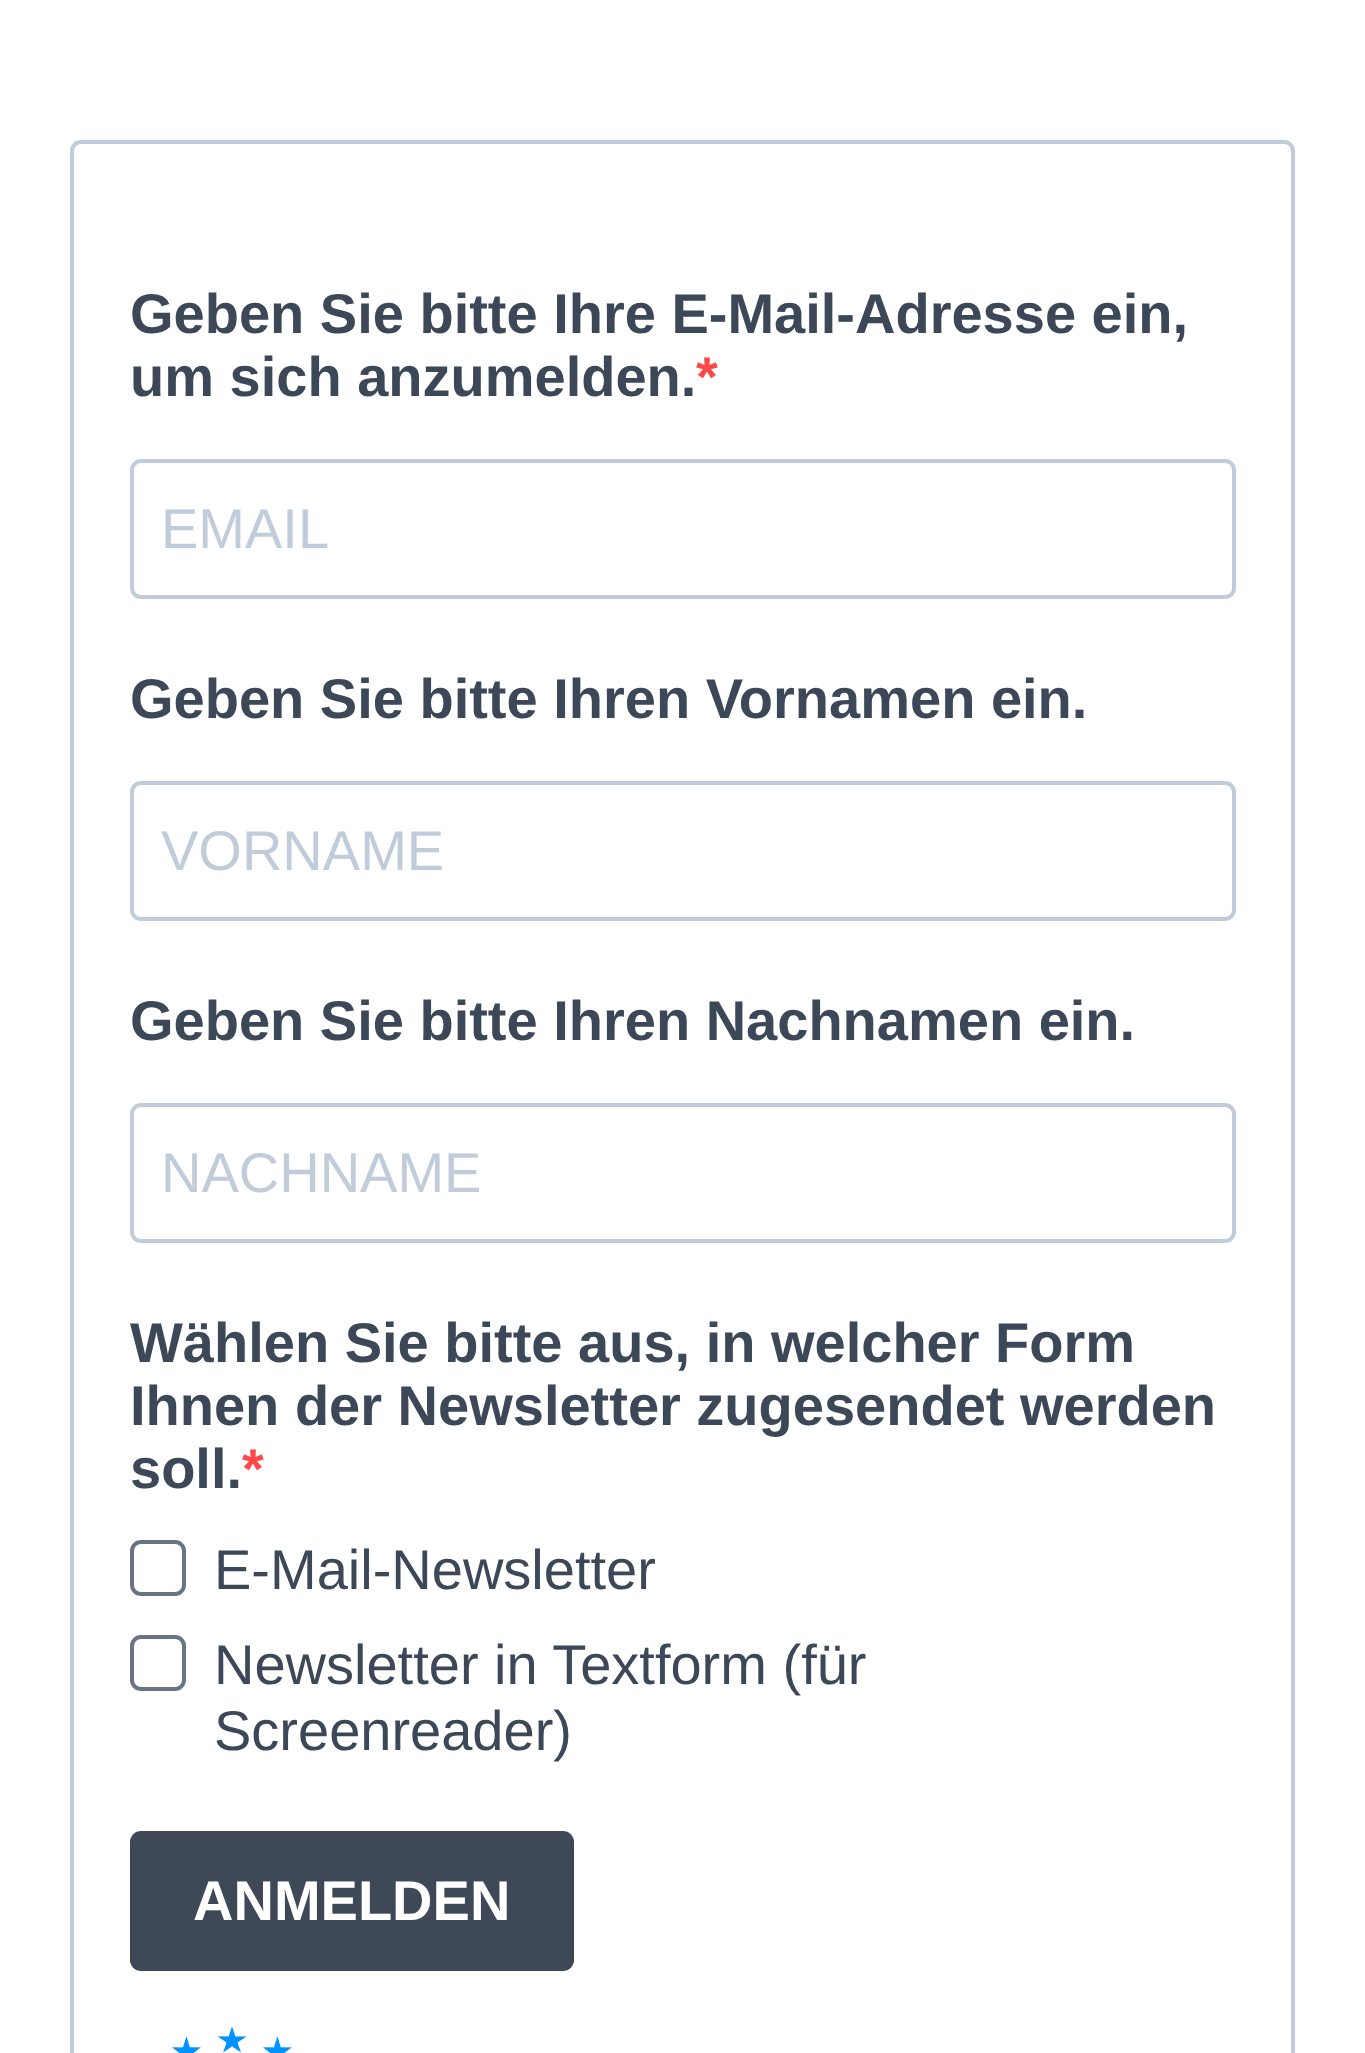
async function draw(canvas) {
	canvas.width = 1365;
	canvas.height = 2053;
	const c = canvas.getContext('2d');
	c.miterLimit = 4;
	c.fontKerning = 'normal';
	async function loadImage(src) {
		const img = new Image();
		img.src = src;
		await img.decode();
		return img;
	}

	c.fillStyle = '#fff';
	c.fillRect(0, 0, 1365, 2053);
	c.beginPath();
	c.roundRect(72, 142, 1221, 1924, 9);
	c.strokeStyle = '#c0ccd9';
	c.lineWidth = 4;
	c.stroke();
	c.font = 'bold 56px Liberation Sans';
	c.fillStyle = '#3c4858';
	c.fillText('Geben Sie bitte Ihre E-Mail-Adresse ein,', 130, 333);
	c.fillText('um sich anzumelden.', 130, 396);
	c.fillStyle = '#ff4949';
	c.fillText('*', 696, 396);
	c.beginPath();
	c.roundRect(132, 461, 1102, 136, 9);
	c.strokeStyle = '#c0ccda';
	c.stroke();
	c.font = '56px Liberation Sans';
	c.fillStyle = '#c0ccda';
	c.fillText('EMAIL', 161, 548);
	c.font = 'bold 56px Liberation Sans';
	c.fillStyle = '#3c4858';
	c.fillText('Geben Sie bitte Ihren Vornamen ein.', 130, 718);
	c.beginPath();
	c.roundRect(132, 783, 1102, 136, 9);
	c.stroke();
	c.font = '56px Liberation Sans';
	c.fillStyle = '#c0ccda';
	c.fillText('VORNAME', 161, 870);
	c.font = 'bold 56px Liberation Sans';
	c.fillStyle = '#3c4858';
	c.fillText('Geben Sie bitte Ihren Nachnamen ein.', 130, 1040);
	c.beginPath();
	c.roundRect(132, 1105, 1102, 136, 9);
	c.stroke();
	c.font = '56px Liberation Sans';
	c.fillStyle = '#c0ccda';
	c.fillText('NACHNAME', 161, 1192);
	c.font = 'bold 56px Liberation Sans';
	c.fillStyle = '#3c4858';
	for (const [text, x, y] of [
		['Wählen Sie bitte aus, in welcher Form', 130, 1362],
		['Ihnen der Newsletter zugesendet werden', 130, 1425],
		['soll.', 130, 1488],
	]) {
		c.fillText(text, x, y);
	}
	c.fillStyle = '#ff4949';
	c.fillText('*', 242, 1488);
	c.beginPath();
	c.roundRect(132, 1542, 52, 52, 9);
	c.strokeStyle = '#687484';
	c.stroke();
	c.font = '56px Liberation Sans';
	c.fillStyle = '#3c4858';
	c.fillText('E-Mail-Newsletter', 214, 1589);
	c.beginPath();
	c.roundRect(132, 1637, 52, 52, 9);
	c.stroke();
	c.fillText('Newsletter in Textform (für', 214, 1684);
	c.fillText('Screenreader)', 214, 1750);
	c.fillStyle = '#3e4857';
	c.beginPath();
	c.roundRect(130, 1831, 444, 140, 11);
	c.fill();
	c.font = 'bold 56px Liberation Sans';
	c.fillStyle = '#fff';
	c.fillText('ANMELDEN', 193, 1920);
	c.drawImage(await loadImage('img1.png'), 172, 2027, 120, 26);
}

draw(document.querySelector('canvas'));
